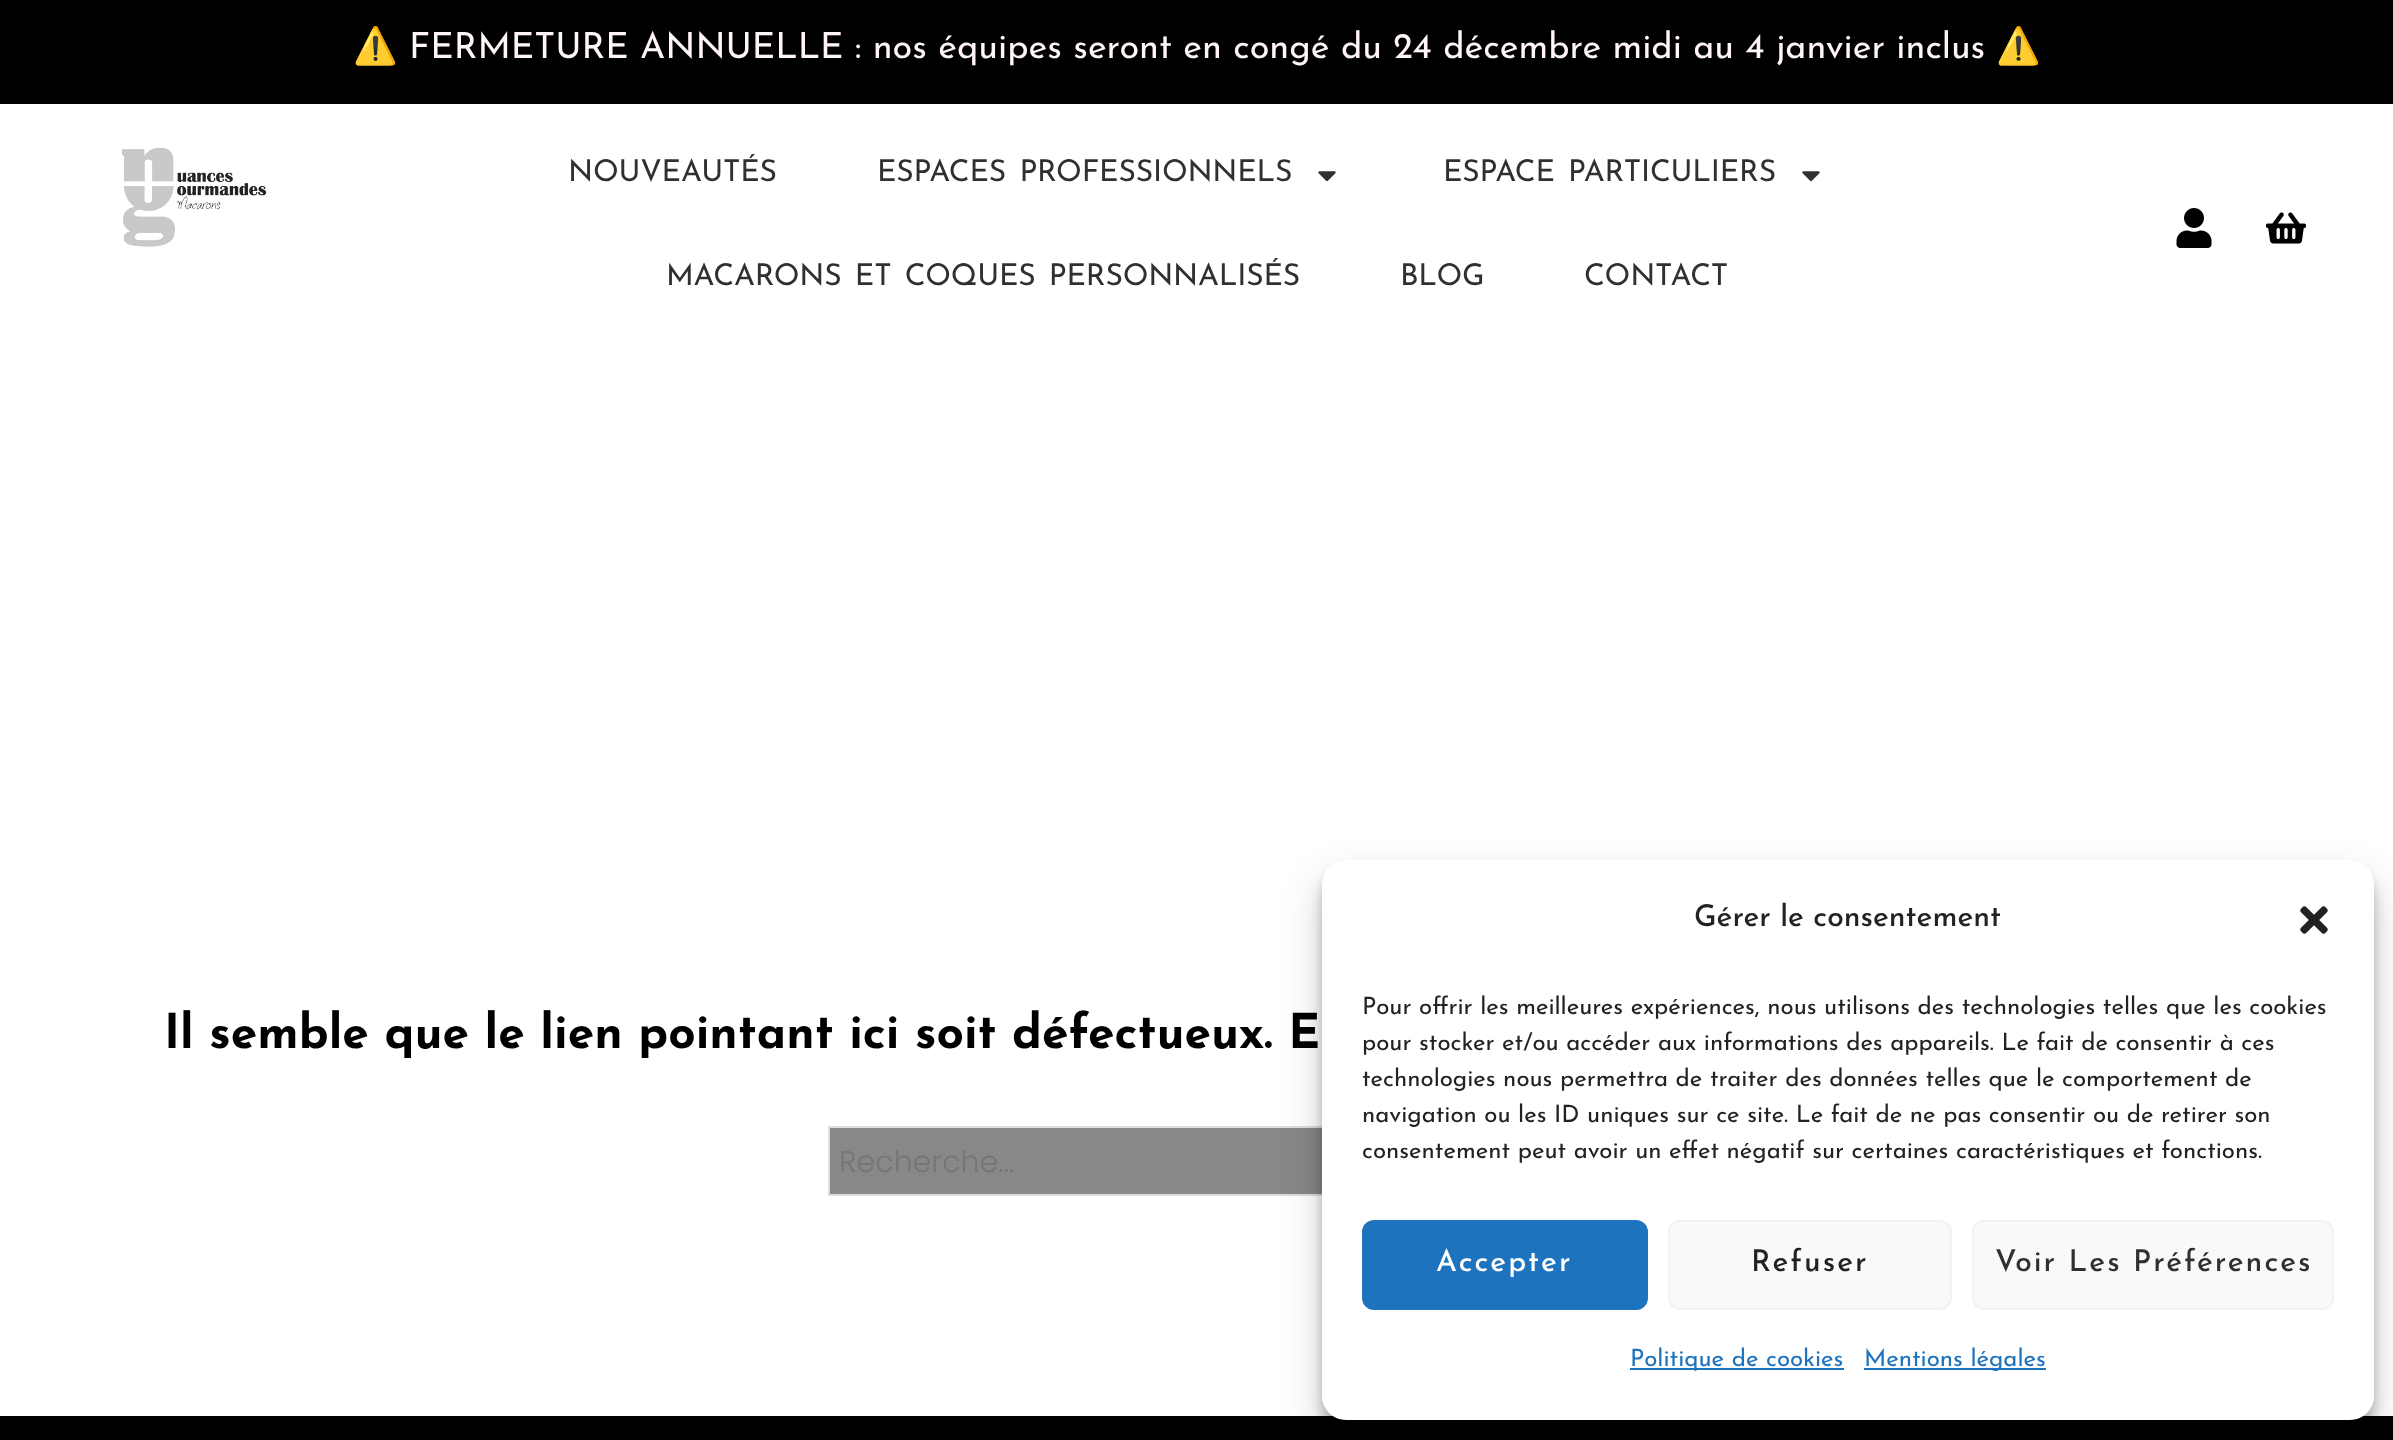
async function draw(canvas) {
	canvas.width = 2393;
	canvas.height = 1440;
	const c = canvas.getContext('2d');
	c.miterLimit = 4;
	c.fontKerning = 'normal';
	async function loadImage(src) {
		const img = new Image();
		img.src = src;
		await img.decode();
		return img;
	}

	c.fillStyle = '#fff';
	c.fillRect(0, 0, 2393, 1440);
	c.fillStyle = '#000';
	c.fillRect(0, 0, 2393, 104);
	c.font = '36px Noto Color Emoji';
	c.fillStyle = '#fff5f5';
	c.fillText('⚠️', 353, 58);
	c.font = '36px Josefin Sans';
	c.fillText('FERMETURE ANNUELLE : nos équipes seront en congé du 24 décembre midi au 4 janvier inclus', 409, 58);
	c.font = '36px Noto Color Emoji';
	c.fillText('⚠️', 1996, 58);
	c.drawImage(await loadImage('img1.png'), 121, 147, 146, 100);
	c.letterSpacing = '-0.2px';
	c.font = '30px Josefin Sans';
	c.fillStyle = '#303030';
	c.fillText('NOUVEAUTÉS', 568, 181);
	c.wordSpacing = '4px';
	c.fillText('ESPACES PROFESSIONNELS', 877, 181);
	c.drawImage(await loadImage('img2.png'), 1318, 171, 18, 11);
	c.fillText('ESPACE PARTICULIERS', 1443, 181);
	c.drawImage(await loadImage('img2.png'), 1802, 171, 18, 11);
	c.fillText('MACARONS ET COQUES PERSONNALISÉS', 666, 285);
	c.wordSpacing = '0px';
	c.fillText('BLOG', 1400, 285);
	c.fillText('CONTACT', 1584, 285);
	c.drawImage(await loadImage('img3.png'), 2176, 208, 36, 40);
	c.drawImage(await loadImage('img4.png'), 2266, 212, 40, 32);
	c.letterSpacing = '0px';
	c.font = 'bold 48px Josefin Sans';
	c.fillStyle = '#000';
	c.fillText('Il semble que le lien pointant ici soit défectueux. E', 164, 1048);
	c.fillStyle = '#888';
	c.fillRect(830, 1128, 492, 66);
	c.strokeStyle = '#ddd';
	c.lineWidth = 2;
	c.strokeRect(829, 1127, 738, 68);
	c.font = '300 30px Poppins';
	c.fillStyle = '#757575';
	c.fillText('Recherche…', 839, 1172);
	c.fillStyle = '#000';
	c.fillRect(0, 1416, 2393, 24);
	c.fillStyle = '#0000003b';
	c.filter = 'blur(6px)';
	c.beginPath();
	c.roundRect(1322, 872, 1052, 560, 24);
	c.fill();
	c.filter = 'none';
	c.fillStyle = '#00000030';
	c.filter = 'blur(20px)';
	c.beginPath();
	c.roundRect(1322, 880, 1052, 560, 24);
	c.fill();
	c.filter = 'none';
	c.fillStyle = '#fff';
	c.beginPath();
	c.roundRect(1322, 860, 1052, 560, 24);
	c.fill();
	c.font = '500 30px Josefin Sans';
	c.fillStyle = '#222';
	c.fillText('Gérer le consentement', 1694, 926);
	c.drawImage(await loadImage('img5.png'), 2300, 906, 28, 28);
	c.font = '24px Josefin Sans';
	for (const [text, x, y] of [
		['Pour offrir les meilleures expériences, nous utilisons des technologies telles que les cookies', 1362, 1014],
		['pour stocker et/ou accéder aux informations des appareils. Le fait de consentir à ces', 1362, 1050],
		['technologies nous permettra de traiter des données telles que le comportement de', 1362, 1086],
		['navigation ou les ID uniques sur ce site. Le fait de ne pas consentir ou de retirer son', 1362, 1122],
		['consentement peut avoir un effet négatif sur certaines caractéristiques et fonctions.', 1362, 1158],
	]) {
		c.fillText(text, x, y);
	}
	c.fillStyle = '#1e73be';
	c.beginPath();
	c.roundRect(1363, 1221, 284, 88, 11);
	c.fill();
	c.strokeStyle = '#1e73be';
	c.stroke();
	c.letterSpacing = '2px';
	c.font = '500 30px Josefin Sans';
	c.fillStyle = '#fff';
	c.fillText('Accepter', 1436, 1271);
	c.fillStyle = '#f9f9f9';
	c.beginPath();
	c.roundRect(1669, 1221, 282, 88, 11);
	c.fill();
	c.strokeStyle = '#f2f2f2';
	c.stroke();
	c.fillStyle = '#222';
	c.fillText('Refuser', 1751, 1271);
	c.fillStyle = '#f9f9f9';
	c.beginPath();
	c.roundRect(1973, 1221, 360, 88, 11);
	c.fill();
	c.stroke();
	c.fillStyle = '#303030';
	c.fillText('Voir Les Préférences', 1995, 1271);
	c.fillStyle = '#1e73be';
	c.fillRect(1630, 1368, 214, 2);
	c.letterSpacing = '0px';
	c.font = '24px Josefin Sans';
	c.fillText('Politique de cookies', 1630, 1366);
	c.fillRect(1864, 1368, 182, 2);
	c.fillText('Mentions légales', 1864, 1366);
}

draw(document.querySelector('canvas'));
